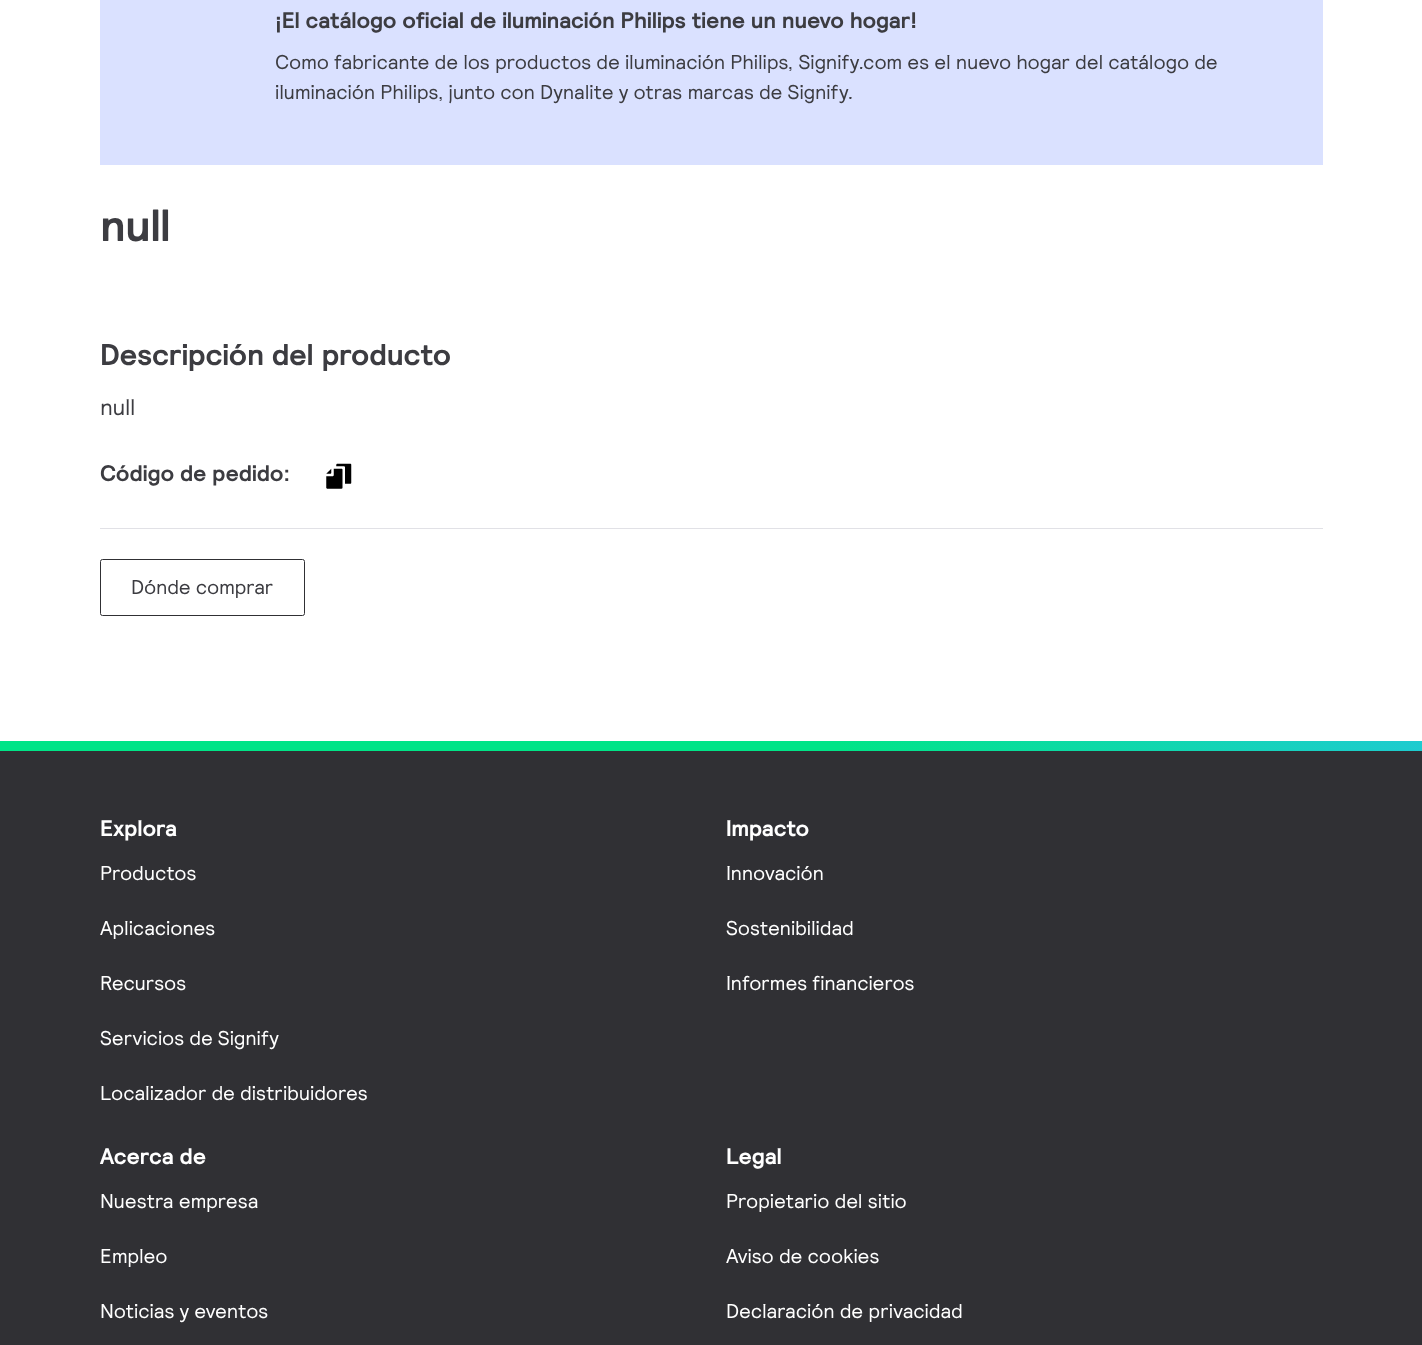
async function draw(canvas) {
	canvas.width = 1422;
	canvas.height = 1345;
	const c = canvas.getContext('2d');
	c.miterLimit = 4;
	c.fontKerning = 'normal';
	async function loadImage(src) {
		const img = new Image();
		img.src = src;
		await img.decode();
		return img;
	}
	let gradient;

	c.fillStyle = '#fff';
	c.fillRect(0, 0, 1422, 1345);
	c.fillStyle = '#dae1ff';
	c.fillRect(100, 0, 1223, 165);
	c.font = 'bold 22.5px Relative';
	c.fillStyle = '#3c3c41';
	c.fillText('¡El catálogo oficial de iluminación Philips tiene un nuevo hogar!', 275, 28);
	c.font = '20px Relative';
	c.fillText('Como fabricante de los productos de iluminación Philips, Signify.com es el nuevo hogar del catálogo de', 275, 69);
	c.fillText('iluminación Philips, junto con Dynalite y otras marcas de Signify.', 275, 99);
	c.font = 'bold 45px Relative';
	c.fillText('null', 100, 241);
	c.font = 'bold 30px Relative';
	c.fillText('Descripción del producto', 100, 365);
	c.font = '22.5px Relative';
	c.fillText('null', 100, 415);
	c.font = 'bold 22.5px Relative';
	c.fillText('Código de pedido:', 100, 481);
	c.drawImage(await loadImage('img1.png'), 326, 463, 26, 26);
	c.fillStyle = '#e1e1e6';
	c.fillRect(100, 528, 1223, 1);
	c.beginPath();
	c.roundRect(100.5, 559.5, 204, 56, 2);
	c.strokeStyle = '#303034';
	c.stroke();
	c.font = '20px Relative';
	c.fillStyle = '#3c3c41';
	c.fillText('Dónde comprar', 131, 594);
	c.fillStyle = '#303034';
	c.fillRect(0, 751, 1422, 594);
	gradient = c.createLinearGradient(162, 1047, 1261, 446);
	gradient.addColorStop(0.59, '#00e487');
	gradient.addColorStop(1, '#1ecbd0');
	c.fillStyle = gradient;
	c.fillRect(0, 741, 1422, 10);
	c.font = 'bold 22.5px Relative';
	c.fillStyle = '#fff';
	c.fillText('Explora', 100, 836);
	c.font = '20px Relative';
	for (const [text, x, y] of [
		['Productos', 100, 880],
		['Aplicaciones', 100, 935],
		['Recursos', 100, 990],
		['Servicios de Signify', 100, 1045],
		['Localizador de distribuidores', 100, 1100],
	]) {
		c.fillText(text, x, y);
	}
	c.font = 'bold 22.5px Relative';
	c.fillText('Impacto', 726, 836);
	c.font = '20px Relative';
	for (const [text, x, y] of [
		['Innovación', 726, 880],
		['Sostenibilidad', 726, 935],
		['Informes financieros', 726, 990],
	]) {
		c.fillText(text, x, y);
	}
	c.font = 'bold 22.5px Relative';
	c.fillText('Acerca de', 100, 1164);
	c.font = '20px Relative';
	for (const [text, x, y] of [
		['Nuestra empresa', 100, 1208],
		['Empleo', 100, 1263],
		['Noticias y eventos', 100, 1318],
	]) {
		c.fillText(text, x, y);
	}
	c.font = 'bold 22.5px Relative';
	c.fillText('Legal', 726, 1164);
	c.font = '20px Relative';
	for (const [text, x, y] of [
		['Propietario del sitio', 726, 1208],
		['Aviso de cookies', 726, 1263],
		['Declaración de privacidad', 726, 1318],
	]) {
		c.fillText(text, x, y);
	}
}

draw(document.querySelector('canvas'));
